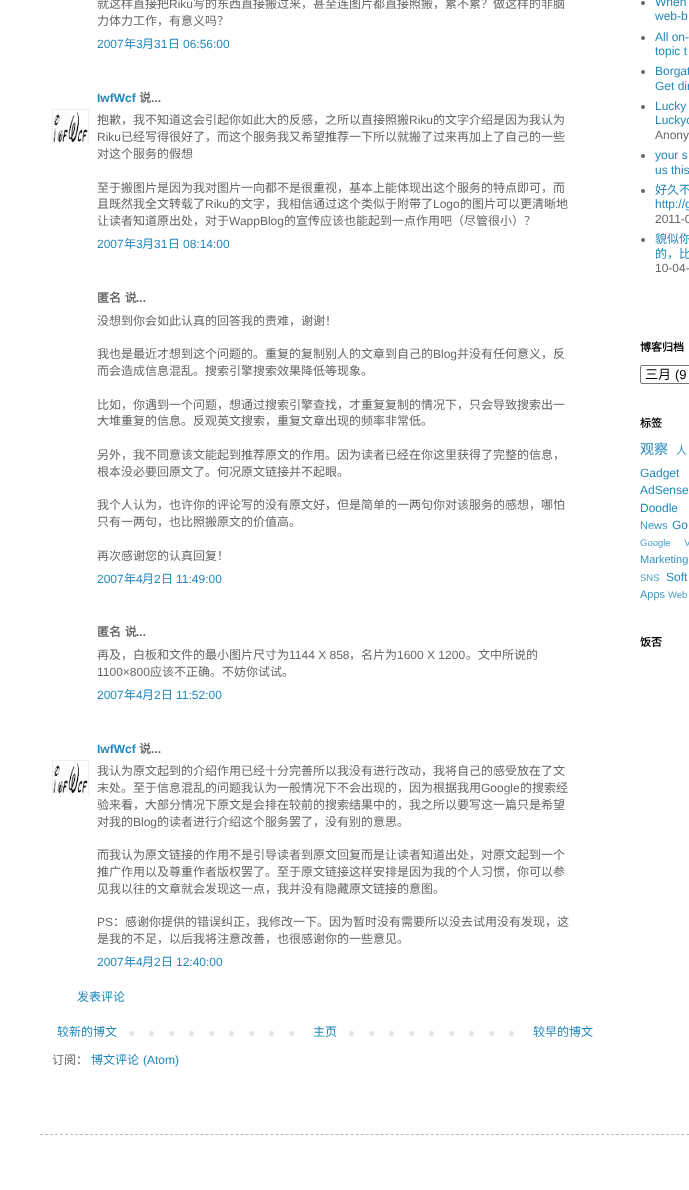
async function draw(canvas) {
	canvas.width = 689;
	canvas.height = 1190;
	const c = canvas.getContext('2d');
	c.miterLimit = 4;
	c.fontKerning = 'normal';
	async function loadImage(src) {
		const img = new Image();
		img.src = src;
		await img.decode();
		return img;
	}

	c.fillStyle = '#fff';
	c.fillRect(0, 0, 689, 1190);
	c.font = '12px Noto Sans CJK SC';
	c.fillStyle = '#666';
	c.fillText('就这样直接把', 97, 8);
	c.font = '12px Liberation Sans';
	c.fillText('Riku', 169, 8);
	c.font = '12px Noto Sans CJK SC';
	c.fillText('写的东西直接搬过来，甚至连图片都直接照搬，累不累？做这样的非脑', 193, 8);
	c.fillText('力体力工作，有意义吗？', 97, 25);
	c.font = '12px Liberation Sans';
	c.fillStyle = '#28b';
	c.fillText('2007', 97, 48);
	c.font = '12px Noto Sans CJK SC';
	c.fillText('年', 124, 48);
	c.font = '12px Liberation Sans';
	c.fillText('3', 136, 48);
	c.font = '12px Noto Sans CJK SC';
	c.fillText('月', 142, 48);
	c.font = '12px Liberation Sans';
	c.fillText('31', 154, 48);
	c.font = '12px Noto Sans CJK SC';
	c.fillText('日', 168, 48);
	c.font = '12px Liberation Sans';
	c.fillText('06:56:00', 183, 48);
	c.font = 'bold 12px Liberation Sans';
	c.fillText('IwfWcf', 97, 102);
	c.font = 'bold 12px Noto Sans CJK SC';
	c.fillStyle = '#666';
	c.fillText('说', 139, 102);
	c.font = 'bold 12px Liberation Sans';
	c.fillText('...', 151, 102);
	c.save();
	c.beginPath();
	c.rect(52, 109, 37, 36);
	c.clip();
	c.strokeStyle = '#eee';
	c.strokeRect(52.5, 109.5, 36, 36);
	c.restore();
	c.drawImage(await loadImage('img1.png'), 53, 112, 35, 31);
	c.font = '12px Noto Sans CJK SC';
	c.fillText('抱歉，我不知道这会引起你如此大的反感，之所以直接照搬', 97, 124);
	c.font = '12px Liberation Sans';
	c.fillText('Riku', 409, 124);
	c.font = '12px Noto Sans CJK SC';
	c.fillText('的文字介绍是因为我认为', 433, 124);
	c.font = '12px Liberation Sans';
	c.fillText('Riku', 97, 141);
	c.font = '12px Noto Sans CJK SC';
	for (const [text, x, y] of [
		['已经写得很好了，而这个服务我又希望推荐一下所以就搬了过来再加上了自己的一些', 121, 141],
		['对这个服务的假想', 97, 158],
		['至于搬图片是因为我对图片一向都不是很重视，基本上能体现出这个服务的特点即可，而', 97, 192],
		['且既然我全文转载了', 97, 208],
	]) {
		c.fillText(text, x, y);
	}
	c.font = '12px Liberation Sans';
	c.fillText('Riku', 205, 208);
	c.font = '12px Noto Sans CJK SC';
	c.fillText('的文字，我相信通过这个类似于附带了', 229, 208);
	c.font = '12px Liberation Sans';
	c.fillText('Logo', 433, 208);
	c.font = '12px Noto Sans CJK SC';
	c.fillText('的图片可以更清晰地', 460, 208);
	c.fillText('让读者知道原出处，对于', 97, 225);
	c.font = '12px Liberation Sans';
	c.fillText('WappBlog', 229, 225);
	c.font = '12px Noto Sans CJK SC';
	c.fillText('的宣传应该也能起到一点作用吧（尽管很小）？', 284, 225);
	c.font = '12px Liberation Sans';
	c.fillStyle = '#28b';
	c.fillText('2007', 97, 248);
	c.font = '12px Noto Sans CJK SC';
	c.fillText('年', 124, 248);
	c.font = '12px Liberation Sans';
	c.fillText('3', 136, 248);
	c.font = '12px Noto Sans CJK SC';
	c.fillText('月', 142, 248);
	c.font = '12px Liberation Sans';
	c.fillText('31', 154, 248);
	c.font = '12px Noto Sans CJK SC';
	c.fillText('日', 168, 248);
	c.font = '12px Liberation Sans';
	c.fillText('08:14:00', 183, 248);
	c.wordSpacing = '1px';
	c.font = 'bold 12px Noto Sans CJK SC';
	c.fillStyle = '#666';
	c.fillText('匿名 说', 97, 302);
	c.wordSpacing = '0px';
	c.font = 'bold 12px Liberation Sans';
	c.fillText('...', 136, 302);
	c.font = '12px Noto Sans CJK SC';
	c.fillText('没想到你会如此认真的回答我的责难，谢谢！', 97, 325);
	c.fillText('我也是最近才想到这个问题的。重复的复制别人的文章到自己的', 97, 358);
	c.font = '12px Liberation Sans';
	c.fillText('Blog', 433, 358);
	c.font = '12px Noto Sans CJK SC';
	for (const [text, x, y] of [
		['并没有任何意义，反', 457, 358],
		['而会造成信息混乱。搜索引擎搜索效果降低等现象。', 97, 375],
		['比如，你遇到一个问题，想通过搜索引擎查找，才重复复制的情况下，只会导致搜索出一', 97, 409],
		['大堆重复的信息。反观英文搜索，重复文章出现的频率非常低。', 97, 425],
		['另外，我不同意该文能起到推荐原文的作用。因为读者已经在你这里获得了完整的信息，', 97, 459],
		['根本没必要回原文了。何况原文链接并不起眼。', 97, 476],
		['我个人认为，也许你的评论写的没有原文好，但是简单的一两句你对该服务的感想，哪怕', 97, 509],
		['只有一两句，也比照搬原文的价值高。', 97, 526],
		['再次感谢您的认真回复！', 97, 560],
	]) {
		c.fillText(text, x, y);
	}
	c.font = '12px Liberation Sans';
	c.fillStyle = '#28b';
	c.fillText('2007', 97, 583);
	c.font = '12px Noto Sans CJK SC';
	c.fillText('年', 124, 583);
	c.font = '12px Liberation Sans';
	c.fillText('4', 136, 583);
	c.font = '12px Noto Sans CJK SC';
	c.fillText('月', 142, 583);
	c.font = '12px Liberation Sans';
	c.fillText('2', 154, 583);
	c.font = '12px Noto Sans CJK SC';
	c.fillText('日', 161, 583);
	c.font = '12px Liberation Sans';
	c.fillText('11:49:00', 176, 583);
	c.wordSpacing = '1px';
	c.font = 'bold 12px Noto Sans CJK SC';
	c.fillStyle = '#666';
	c.fillText('匿名 说', 97, 636);
	c.wordSpacing = '0px';
	c.font = 'bold 12px Liberation Sans';
	c.fillText('...', 136, 636);
	c.font = '12px Noto Sans CJK SC';
	c.fillText('再及，白板和文件的最小图片尺寸为', 97, 659);
	c.font = '12px Liberation Sans';
	c.fillText('1144 X 858', 289, 659);
	c.font = '12px Noto Sans CJK SC';
	c.fillText('，名片为', 349, 659);
	c.font = '12px Liberation Sans';
	c.fillText('1600 X 1200', 397, 659);
	c.font = '12px Noto Sans CJK SC';
	c.fillText('。文中所说的', 466, 659);
	c.font = '12px Liberation Sans';
	c.fillText('1100×800', 97, 676);
	c.font = '12px Noto Sans CJK SC';
	c.fillText('应该不正确。不妨你试试。', 150, 676);
	c.font = '12px Liberation Sans';
	c.fillStyle = '#28b';
	c.fillText('2007', 97, 699);
	c.font = '12px Noto Sans CJK SC';
	c.fillText('年', 124, 699);
	c.font = '12px Liberation Sans';
	c.fillText('4', 136, 699);
	c.font = '12px Noto Sans CJK SC';
	c.fillText('月', 142, 699);
	c.font = '12px Liberation Sans';
	c.fillText('2', 154, 699);
	c.font = '12px Noto Sans CJK SC';
	c.fillText('日', 161, 699);
	c.font = '12px Liberation Sans';
	c.fillText('11:52:00', 176, 699);
	c.font = 'bold 12px Liberation Sans';
	c.fillText('IwfWcf', 97, 753);
	c.font = 'bold 12px Noto Sans CJK SC';
	c.fillStyle = '#666';
	c.fillText('说', 139, 753);
	c.font = 'bold 12px Liberation Sans';
	c.fillText('...', 151, 753);
	c.save();
	c.beginPath();
	c.rect(52, 760, 37, 36);
	c.clip();
	c.strokeStyle = '#eee';
	c.strokeRect(52.5, 760.5, 36, 36);
	c.restore();
	c.drawImage(await loadImage('img2.png'), 53, 763, 35, 31);
	c.font = '12px Noto Sans CJK SC';
	c.fillText('我认为原文起到的介绍作用已经十分完善所以我没有进行改动，我将自己的感受放在了文', 97, 775);
	c.fillText('末处。至于信息混乱的问题我认为一般情况下不会出现的，因为根据我用', 97, 792);
	c.font = '12px Liberation Sans';
	c.fillText('Google', 481, 792);
	c.font = '12px Noto Sans CJK SC';
	for (const [text, x, y] of [
		['的搜索经', 520, 792],
		['验来看，大部分情况下原文是会排在较前的搜索结果中的，我之所以要写这一篇只是希望', 97, 809],
		['对我的', 97, 826],
	]) {
		c.fillText(text, x, y);
	}
	c.font = '12px Liberation Sans';
	c.fillText('Blog', 133, 826);
	c.font = '12px Noto Sans CJK SC';
	for (const [text, x, y] of [
		['的读者进行介绍这个服务罢了，没有别的意思。', 157, 826],
		['而我认为原文链接的作用不是引导读者到原文回复而是让读者知道出处，对原文起到一个', 97, 859],
		['推广作用以及尊重作者版权罢了。至于原文链接这样安排是因为我的个人习惯，你可以参', 97, 876],
		['见我以往的文章就会发现这一点，我并没有隐藏原文链接的意图。', 97, 893],
	]) {
		c.fillText(text, x, y);
	}
	c.font = '12px Liberation Sans';
	c.fillText('PS', 97, 926);
	c.font = '12px Noto Sans CJK SC';
	c.fillText('：感谢你提供的错误纠正，我修改一下。因为暂时没有需要所以没去试用没有发现，这', 113, 926);
	c.fillText('是我的不足，以后我将注意改善，也很感谢你的一些意见。', 97, 943);
	c.font = '12px Liberation Sans';
	c.fillStyle = '#28b';
	c.fillText('2007', 97, 966);
	c.font = '12px Noto Sans CJK SC';
	c.fillText('年', 124, 966);
	c.font = '12px Liberation Sans';
	c.fillText('4', 136, 966);
	c.font = '12px Noto Sans CJK SC';
	c.fillText('月', 142, 966);
	c.font = '12px Liberation Sans';
	c.fillText('2', 154, 966);
	c.font = '12px Noto Sans CJK SC';
	c.fillText('日', 161, 966);
	c.font = '12px Liberation Sans';
	c.fillText('12:40:00', 176, 966);
	c.font = '12px Noto Sans CJK SC';
	c.fillText('发表评论', 77, 1001);
	c.drawImage(await loadImage('img3.png'), 129, 1031, 385, 5);
	c.fillText('较新的博文', 57, 1036);
	c.fillStyle = '#fff';
	c.fillRect(309, 1031, 26, 5);
	c.fillStyle = '#28b';
	c.fillText('主页', 313, 1036);
	c.fillText('较早的博文', 533, 1036);
	c.fillStyle = '#666';
	c.fillText('订阅：', 52, 1064);
	c.fillStyle = '#28b';
	c.fillText('博文评论', 91, 1064);
	c.font = '12px Liberation Sans';
	c.fillText('(Atom)', 143, 1064);
	c.fillStyle = '#666';
	c.beginPath();
	c.arc(643, 3, 2, 0, 2 * Math.PI);
	c.fill();
	c.fillStyle = '#28b';
	c.fillText('When', 655, 6);
	c.fillText('web-b', 655, 20);
	c.fillStyle = '#666';
	c.beginPath();
	c.arc(643, 38, 2, 0, 2 * Math.PI);
	c.fill();
	c.fillStyle = '#28b';
	c.fillText('All on-', 655, 41);
	c.fillText('topic t', 655, 55);
	c.fillStyle = '#666';
	c.beginPath();
	c.arc(643, 72, 2, 0, 2 * Math.PI);
	c.fill();
	c.fillStyle = '#28b';
	c.fillText('Borgat', 655, 75);
	c.fillText('Get dir', 655, 90);
	c.fillStyle = '#666';
	c.beginPath();
	c.arc(643, 107, 2, 0, 2 * Math.PI);
	c.fill();
	c.fillStyle = '#28b';
	c.fillText('Lucky', 655, 110);
	c.fillText('Luckyc', 655, 124);
	c.fillStyle = '#666';
	c.fillText('Anony', 655, 139);
	c.beginPath();
	c.arc(643, 156, 2, 0, 2 * Math.PI);
	c.fill();
	c.fillStyle = '#28b';
	c.fillText('your s', 655, 159);
	c.fillText('us this', 655, 174);
	c.fillStyle = '#666';
	c.beginPath();
	c.arc(643, 191, 2, 0, 2 * Math.PI);
	c.fill();
	c.font = '12px Noto Sans CJK SC';
	c.fillStyle = '#28b';
	c.fillText('好久不', 655, 194);
	c.font = '12px Liberation Sans';
	c.fillText('http://g', 655, 208);
	c.fillStyle = '#666';
	c.fillText('2011-0', 655, 223);
	c.beginPath();
	c.arc(643, 240, 2, 0, 2 * Math.PI);
	c.fill();
	c.font = '12px Noto Sans CJK SC';
	c.fillStyle = '#28b';
	c.fillText('貌似你', 655, 243);
	c.fillText('的，比', 655, 258);
	c.font = '12px Liberation Sans';
	c.fillStyle = '#666';
	c.fillText('10-04-', 655, 272);
	c.font = 'bold 11px Noto Sans CJK SC';
	c.fillStyle = '#000';
	c.fillText('博客归档', 640, 351);
	c.beginPath();
	c.roundRect(640.5, 365.5, 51, 18, 1.5);
	c.strokeStyle = '#767676';
	c.stroke();
	c.font = '13px Noto Sans CJK SC';
	c.fillText('三月', 645, 379);
	c.font = '13px Liberation Sans';
	c.fillText('(9', 675, 379);
	c.font = 'bold 11px Noto Sans CJK SC';
	c.fillText('标签', 640, 427);
	c.font = '14px Noto Sans CJK SC';
	c.fillStyle = '#28b';
	c.fillText('观察', 640, 454);
	c.font = '11px Noto Sans CJK SC';
	c.fillStyle = '#3894c2';
	c.fillText('人', 676, 454);
	c.font = '12px Liberation Sans';
	c.fillStyle = '#28b';
	for (const [text, x, y] of [
		['Gadget', 640, 477],
		['AdSense', 640, 494],
		['Doodle', 640, 512],
	]) {
		c.fillText(text, x, y);
	}
	c.font = '11px Liberation Sans';
	c.fillStyle = '#3894c2';
	c.fillText('News', 640, 529);
	c.wordSpacing = '2px';
	c.font = '12px Liberation Sans';
	c.fillStyle = '#28b';
	c.fillText('Go', 672, 529);
	c.wordSpacing = '11px';
	c.font = '9.5px Liberation Sans';
	c.fillStyle = '#4ea0c9';
	c.fillText('Google V', 640, 546);
	c.wordSpacing = '0px';
	c.font = '11px Liberation Sans';
	c.fillStyle = '#3894c2';
	c.fillText('Marketing', 640, 563);
	c.font = '9.5px Liberation Sans';
	c.fillStyle = '#4ea0c9';
	c.fillText('SNS', 640, 581);
	c.font = '12px Liberation Sans';
	c.fillStyle = '#28b';
	c.fillText('Soft', 666, 581);
	c.font = '11px Liberation Sans';
	c.fillStyle = '#3894c2';
	c.fillText('Apps', 640, 598);
	c.font = '9.5px Liberation Sans';
	c.fillStyle = '#4ea0c9';
	c.fillText('Web', 668, 598);
	c.font = 'bold 11px Noto Sans CJK SC';
	c.fillStyle = '#000';
	c.fillText('饭否', 640, 646);
	c.beginPath();
	c.moveTo(40, 1134.5);
	c.lineTo(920, 1134.5);
	c.strokeStyle = '#bbb';
	c.setLineDash([3, 2.01]);
	c.stroke();
}

draw(document.querySelector('canvas'));
